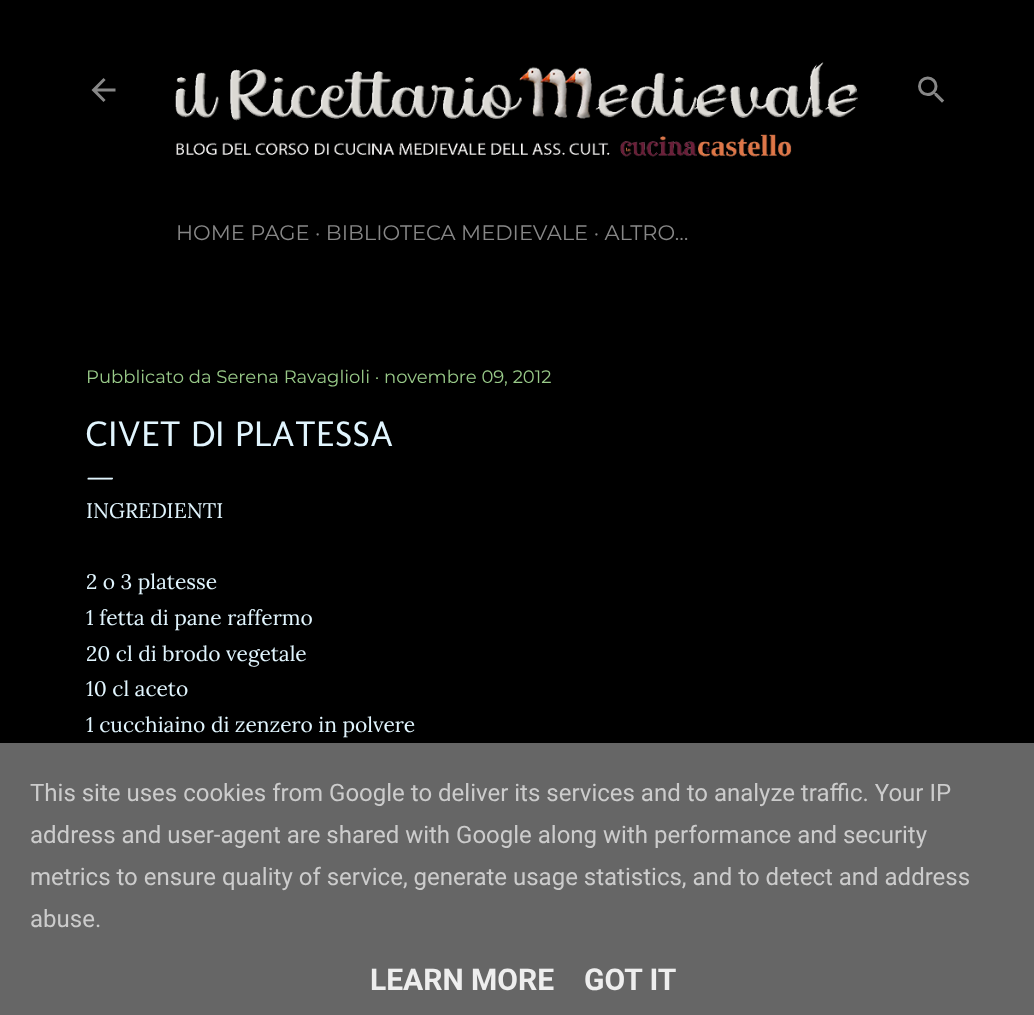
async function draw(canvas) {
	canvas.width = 1034;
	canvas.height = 1015;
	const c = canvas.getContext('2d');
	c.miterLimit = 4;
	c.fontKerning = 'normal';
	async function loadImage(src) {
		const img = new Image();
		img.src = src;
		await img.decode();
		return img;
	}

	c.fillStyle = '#000';
	c.fillRect(0, 0, 1034, 1015);
	c.drawImage(await loadImage('img1.png'), 91, 78, 25, 24);
	c.drawImage(await loadImage('img2.png'), 918, 76, 27, 27);
	c.drawImage(await loadImage('img3.png'), 175, 62, 683, 95);
	c.font = '21px Montserrat';
	c.fillStyle = '#878787';
	c.fillText('HOME PAGE · BIBLIOTECA MEDIEVALE · ALTRO…', 176, 240);
	c.font = '18px Montserrat';
	c.fillStyle = '#99ca89';
	c.fillText('Pubblicato da Serena Ravaglioli · novembre 09, 2012', 86, 383);
	c.font = '36px Molengo';
	c.fillStyle = '#e1f5fe';
	c.fillText('CIVET DI PLATESSA', 86, 446);
	c.font = '30px EB Garamond';
	c.fillText('—', 86, 485);
	c.font = '21px Lora';
	for (const [text, x, y] of [
		['INGREDIENTI', 86, 518],
		['2 o 3 platesse', 86, 589],
		['1 fetta di pane raffermo', 86, 625],
		['20 cl di brodo vegetale', 86, 661],
		['10 cl aceto', 86, 696],
		['1 cucchiaino di zenzero in polvere', 86, 732],
	]) {
		c.fillText(text, x, y);
	}
	c.fillStyle = '#666';
	c.fillRect(0, 743, 1034, 272);
	c.font = '24px Roboto';
	c.fillStyle = '#ccc';
	for (const [text, x, y] of [
		['This site uses cookies from Google to deliver its services and to analyze traffic. Your IP', 30, 801],
		['address and user-agent are shared with Google along with performance and security', 30, 843],
		['metrics to ensure quality of service, generate usage statistics, and to detect and address', 30, 885],
		['abuse.', 30, 927],
	]) {
		c.fillText(text, x, y);
	}
	c.font = 'bold 30px Roboto';
	c.fillStyle = '#eee';
	c.fillText('LEARN MORE', 370, 990);
	c.fillText('GOT IT', 584, 990);
}

draw(document.querySelector('canvas'));
